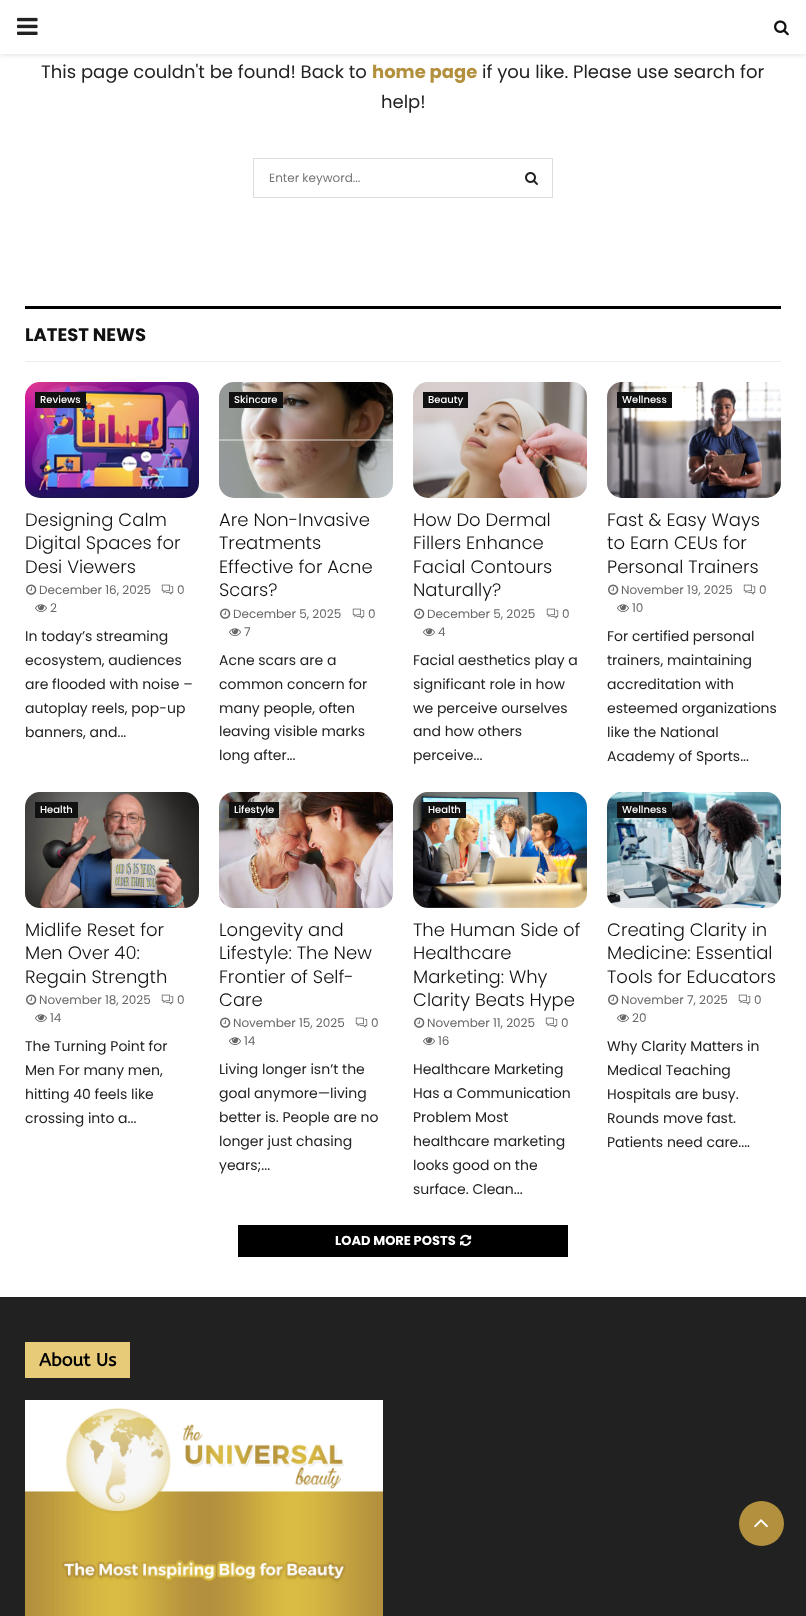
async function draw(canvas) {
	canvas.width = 806;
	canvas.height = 1616;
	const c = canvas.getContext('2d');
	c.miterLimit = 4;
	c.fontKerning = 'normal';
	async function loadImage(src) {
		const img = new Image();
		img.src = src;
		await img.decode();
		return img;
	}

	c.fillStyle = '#fff';
	c.fillRect(0, 0, 806, 1616);
	c.fillStyle = '#bebebe75';
	c.filter = 'blur(2.5px)';
	c.beginPath();
	c.rect(0, 1, 806, 54);
	c.fill();
	c.filter = 'none';
	c.fillStyle = '#fff';
	c.fillRect(0, 0, 806, 54);
	c.drawImage(await loadImage('img1.png'), 17, 17, 21, 18);
	c.drawImage(await loadImage('img2.png'), 774, 20, 15, 16);
	c.font = '18px Poppins';
	c.fillStyle = '#222';
	c.fillText('This page couldn\'t be found! Back to', 41, 78);
	c.font = 'bold 18px Poppins';
	c.fillStyle = '#b3903e';
	c.fillText('home page', 372, 78);
	c.font = '18px Poppins';
	c.fillStyle = '#222';
	c.fillText('if you like. Please use search for', 482, 78);
	c.fillText('help!', 381, 108);
	c.strokeStyle = '#dedede';
	c.strokeRect(253.5, 158.5, 299, 39);
	c.font = '12px Poppins';
	c.fillStyle = '#757575';
	c.fillText('Enter keyword...', 269, 182);
	c.drawImage(await loadImage('img3.png'), 525, 172, 13, 13);
	c.fillStyle = '#ececec';
	c.fillRect(25, 361, 756, 1);
	c.fillStyle = '#000';
	c.fillRect(25, 306, 756, 3);
	c.font = 'bold 18px Poppins';
	c.fillStyle = '#111';
	c.fillText('LATEST NEWS', 25, 341);
	c.fillStyle = '#f5f5f5';
	c.beginPath();
	c.roundRect(25, 382, 174, 116, 15);
	c.fill();
	c.drawImage(await loadImage('img4.png'), 25, 382, 174, 116);
	c.fillStyle = '#111';
	c.fillRect(35, 392, 51, 16);
	c.font = '500 10px Poppins';
	c.fillStyle = '#fff';
	c.fillText('Reviews', 40, 403);
	c.font = '300 18px Poppins';
	c.fillStyle = '#111';
	for (const [text, x, y] of [
		['Designing Calm', 25, 526],
		['Digital Spaces for', 25, 549],
		['Desi Viewers', 25, 573],
	]) {
		c.fillText(text, x, y);
	}
	c.drawImage(await loadImage('img5.png'), 26, 584, 11, 11);
	c.font = '12px Poppins';
	c.fillStyle = '#666';
	c.fillText('December 16, 2025', 39, 594);
	c.drawImage(await loadImage('img6.png'), 161, 584, 13, 11);
	c.fillText('0', 177, 594);
	c.drawImage(await loadImage('img7.png'), 35, 604, 12, 8);
	c.fillText('2', 50, 612);
	c.font = '14px Poppins';
	c.fillStyle = '#222';
	for (const [text, x, y] of [
		['In today’s streaming', 25, 641],
		['ecosystem, audiences', 25, 665],
		['are flooded with noise –', 25, 689],
		['autoplay reels, pop-up', 25, 713],
		['banners, and...', 25, 737],
	]) {
		c.fillText(text, x, y);
	}
	c.fillStyle = '#f5f5f5';
	c.beginPath();
	c.roundRect(219, 382, 174, 116, 15);
	c.fill();
	c.drawImage(await loadImage('img8.png'), 219, 382, 174, 116);
	c.fillStyle = '#111';
	c.fillRect(229, 392, 54, 16);
	c.font = '500 10px Poppins';
	c.fillStyle = '#fff';
	c.fillText('Skincare', 234, 403);
	c.font = '300 18px Poppins';
	c.fillStyle = '#111';
	for (const [text, x, y] of [
		['Are Non-Invasive', 219, 526],
		['Treatments', 219, 549],
		['Effective for Acne', 219, 573],
		['Scars?', 219, 596],
	]) {
		c.fillText(text, x, y);
	}
	c.drawImage(await loadImage('img5.png'), 220, 608, 11, 11);
	c.font = '12px Poppins';
	c.fillStyle = '#666';
	c.fillText('December 5, 2025', 233, 618);
	c.drawImage(await loadImage('img6.png'), 352, 608, 13, 11);
	c.fillText('0', 368, 618);
	c.drawImage(await loadImage('img7.png'), 229, 628, 12, 8);
	c.fillText('7', 244, 636);
	c.font = '14px Poppins';
	c.fillStyle = '#222';
	for (const [text, x, y] of [
		['Acne scars are a', 219, 665],
		['common concern for', 219, 689],
		['many people, often', 219, 713],
		['leaving visible marks', 219, 736],
		['long after...', 219, 760],
	]) {
		c.fillText(text, x, y);
	}
	c.fillStyle = '#f5f5f5';
	c.beginPath();
	c.roundRect(413, 382, 174, 116, 15);
	c.fill();
	c.drawImage(await loadImage('img9.png'), 413, 382, 174, 116);
	c.fillStyle = '#111';
	c.fillRect(423, 392, 45, 16);
	c.font = '500 10px Poppins';
	c.fillStyle = '#fff';
	c.fillText('Beauty', 428, 403);
	c.font = '300 18px Poppins';
	c.fillStyle = '#111';
	for (const [text, x, y] of [
		['How Do Dermal', 413, 526],
		['Fillers Enhance', 413, 549],
		['Facial Contours', 413, 573],
		['Naturally?', 413, 596],
	]) {
		c.fillText(text, x, y);
	}
	c.drawImage(await loadImage('img5.png'), 414, 608, 11, 11);
	c.font = '12px Poppins';
	c.fillStyle = '#666';
	c.fillText('December 5, 2025', 427, 618);
	c.drawImage(await loadImage('img6.png'), 546, 608, 13, 11);
	c.fillText('0', 562, 618);
	c.drawImage(await loadImage('img7.png'), 423, 628, 12, 8);
	c.fillText('4', 438, 636);
	c.font = '14px Poppins';
	c.fillStyle = '#222';
	for (const [text, x, y] of [
		['Facial aesthetics play a', 413, 665],
		['significant role in how', 413, 689],
		['we perceive ourselves', 413, 713],
		['and how others', 413, 736],
		['perceive...', 413, 760],
	]) {
		c.fillText(text, x, y);
	}
	c.fillStyle = '#f5f5f5';
	c.beginPath();
	c.roundRect(607, 382, 174, 116, 15);
	c.fill();
	c.drawImage(await loadImage('img10.png'), 607, 382, 174, 116);
	c.fillStyle = '#111';
	c.fillRect(617, 392, 55, 16);
	c.font = '500 10px Poppins';
	c.fillStyle = '#fff';
	c.fillText('Wellness', 622, 403);
	c.font = '300 18px Poppins';
	c.fillStyle = '#111';
	for (const [text, x, y] of [
		['Fast & Easy Ways', 607, 526],
		['to Earn CEUs for', 607, 549],
		['Personal Trainers', 607, 573],
	]) {
		c.fillText(text, x, y);
	}
	c.drawImage(await loadImage('img5.png'), 608, 584, 11, 11);
	c.font = '12px Poppins';
	c.fillStyle = '#666';
	c.fillText('November 19, 2025', 621, 594);
	c.drawImage(await loadImage('img6.png'), 743, 584, 13, 11);
	c.fillText('0', 759, 594);
	c.drawImage(await loadImage('img7.png'), 617, 604, 12, 8);
	c.fillText('10', 632, 612);
	c.font = '14px Poppins';
	c.fillStyle = '#222';
	for (const [text, x, y] of [
		['For certified personal', 607, 641],
		['trainers, maintaining', 607, 665],
		['accreditation with', 607, 689],
		['esteemed organizations', 607, 713],
		['like the National', 607, 737],
		['Academy of Sports...', 607, 761],
	]) {
		c.fillText(text, x, y);
	}
	c.fillStyle = '#f5f5f5';
	c.beginPath();
	c.roundRect(25, 792, 174, 116, 15);
	c.fill();
	c.drawImage(await loadImage('img11.png'), 25, 792, 174, 116);
	c.fillStyle = '#111';
	c.fillRect(35, 802, 43, 16);
	c.font = '500 10px Poppins';
	c.fillStyle = '#fff';
	c.fillText('Health', 40, 813);
	c.font = '300 18px Poppins';
	c.fillStyle = '#111';
	for (const [text, x, y] of [
		['Midlife Reset for', 25, 936],
		['Men Over 40:', 25, 959],
		['Regain Strength', 25, 983],
	]) {
		c.fillText(text, x, y);
	}
	c.drawImage(await loadImage('img5.png'), 26, 994, 11, 11);
	c.font = '12px Poppins';
	c.fillStyle = '#666';
	c.fillText('November 18, 2025', 39, 1004);
	c.drawImage(await loadImage('img6.png'), 161, 994, 13, 11);
	c.fillText('0', 177, 1004);
	c.drawImage(await loadImage('img7.png'), 35, 1014, 12, 8);
	c.fillText('14', 50, 1022);
	c.font = '14px Poppins';
	c.fillStyle = '#222';
	for (const [text, x, y] of [
		['The Turning Point for', 25, 1051],
		['Men For many men,', 25, 1075],
		['hitting 40 feels like', 25, 1099],
		['crossing into a...', 25, 1123],
	]) {
		c.fillText(text, x, y);
	}
	c.fillStyle = '#f5f5f5';
	c.beginPath();
	c.roundRect(219, 792, 174, 116, 15);
	c.fill();
	c.drawImage(await loadImage('img12.png'), 219, 792, 174, 116);
	c.fillStyle = '#111';
	c.fillRect(229, 802, 50, 16);
	c.font = '500 10px Poppins';
	c.fillStyle = '#fff';
	c.fillText('Lifestyle', 234, 813);
	c.font = '300 18px Poppins';
	c.fillStyle = '#111';
	for (const [text, x, y] of [
		['Longevity and', 219, 936],
		['Lifestyle: The New', 219, 959],
		['Frontier of Self-', 219, 983],
		['Care', 219, 1006],
	]) {
		c.fillText(text, x, y);
	}
	c.drawImage(await loadImage('img5.png'), 220, 1017, 11, 11);
	c.font = '12px Poppins';
	c.fillStyle = '#666';
	c.fillText('November 15, 2025', 233, 1027);
	c.drawImage(await loadImage('img6.png'), 355, 1017, 13, 11);
	c.fillText('0', 371, 1027);
	c.drawImage(await loadImage('img7.png'), 229, 1037, 12, 8);
	c.fillText('14', 244, 1045);
	c.font = '14px Poppins';
	c.fillStyle = '#222';
	for (const [text, x, y] of [
		['Living longer isn’t the', 219, 1074],
		['goal anymore—living', 219, 1098],
		['better is. People are no', 219, 1122],
		['longer just chasing', 219, 1146],
		['years;...', 219, 1170],
	]) {
		c.fillText(text, x, y);
	}
	c.fillStyle = '#f5f5f5';
	c.beginPath();
	c.roundRect(413, 792, 174, 116, 15);
	c.fill();
	c.drawImage(await loadImage('img13.png'), 413, 792, 174, 116);
	c.fillStyle = '#111';
	c.fillRect(423, 802, 43, 16);
	c.font = '500 10px Poppins';
	c.fillStyle = '#fff';
	c.fillText('Health', 428, 813);
	c.font = '300 18px Poppins';
	c.fillStyle = '#111';
	for (const [text, x, y] of [
		['The Human Side of', 413, 936],
		['Healthcare', 413, 959],
		['Marketing: Why', 413, 983],
		['Clarity Beats Hype', 413, 1006],
	]) {
		c.fillText(text, x, y);
	}
	c.drawImage(await loadImage('img5.png'), 414, 1017, 11, 11);
	c.font = '12px Poppins';
	c.fillStyle = '#666';
	c.fillText('November 11, 2025', 427, 1027);
	c.drawImage(await loadImage('img6.png'), 545, 1017, 13, 11);
	c.fillText('0', 561, 1027);
	c.drawImage(await loadImage('img7.png'), 423, 1037, 12, 8);
	c.fillText('16', 438, 1045);
	c.font = '14px Poppins';
	c.fillStyle = '#222';
	for (const [text, x, y] of [
		['Healthcare Marketing', 413, 1074],
		['Has a Communication', 413, 1098],
		['Problem Most', 413, 1122],
		['healthcare marketing', 413, 1146],
		['looks good on the', 413, 1170],
		['surface. Clean...', 413, 1194],
	]) {
		c.fillText(text, x, y);
	}
	c.fillStyle = '#f5f5f5';
	c.beginPath();
	c.roundRect(607, 792, 174, 116, 15);
	c.fill();
	c.drawImage(await loadImage('img14.png'), 607, 792, 174, 116);
	c.fillStyle = '#111';
	c.fillRect(617, 802, 55, 16);
	c.font = '500 10px Poppins';
	c.fillStyle = '#fff';
	c.fillText('Wellness', 622, 813);
	c.font = '300 18px Poppins';
	c.fillStyle = '#111';
	for (const [text, x, y] of [
		['Creating Clarity in', 607, 936],
		['Medicine: Essential', 607, 959],
		['Tools for Educators', 607, 983],
	]) {
		c.fillText(text, x, y);
	}
	c.drawImage(await loadImage('img5.png'), 608, 994, 11, 11);
	c.font = '12px Poppins';
	c.fillStyle = '#666';
	c.fillText('November 7, 2025', 621, 1004);
	c.drawImage(await loadImage('img6.png'), 738, 994, 13, 11);
	c.fillText('0', 754, 1004);
	c.drawImage(await loadImage('img7.png'), 617, 1014, 12, 8);
	c.fillText('20', 632, 1022);
	c.font = '14px Poppins';
	c.fillStyle = '#222';
	for (const [text, x, y] of [
		['Why Clarity Matters in', 607, 1051],
		['Medical Teaching', 607, 1075],
		['Hospitals are busy.', 607, 1099],
		['Rounds move fast.', 607, 1123],
		['Patients need care....', 607, 1147],
	]) {
		c.fillText(text, x, y);
	}
	c.fillStyle = '#000';
	c.fillRect(238, 1225, 330, 32);
	c.font = 'bold 13px Poppins';
	c.fillStyle = '#fff';
	c.fillText('LOAD MORE POSTS', 335, 1245);
	c.drawImage(await loadImage('img15.png'), 460, 1234, 12, 12);
	c.fillStyle = '#212121';
	c.fillRect(0, 1297, 806, 319);
	c.fillStyle = '#e7cb78';
	c.fillRect(25, 1342, 105, 36);
	c.font = 'bold 18px ABeeZee';
	c.fillStyle = '#000';
	c.fillText('About Us', 39, 1366);
	c.drawImage(await loadImage('img16.png'), 25, 1400, 358, 216);
	c.fillStyle = '#b3903e';
	c.beginPath();
	c.arc(761.5, 1523.5, 22.5, 0, 2 * Math.PI);
	c.fill();
	c.drawImage(await loadImage('img17.png'), 754, 1519, 14, 9);
}

draw(document.querySelector('canvas'));
